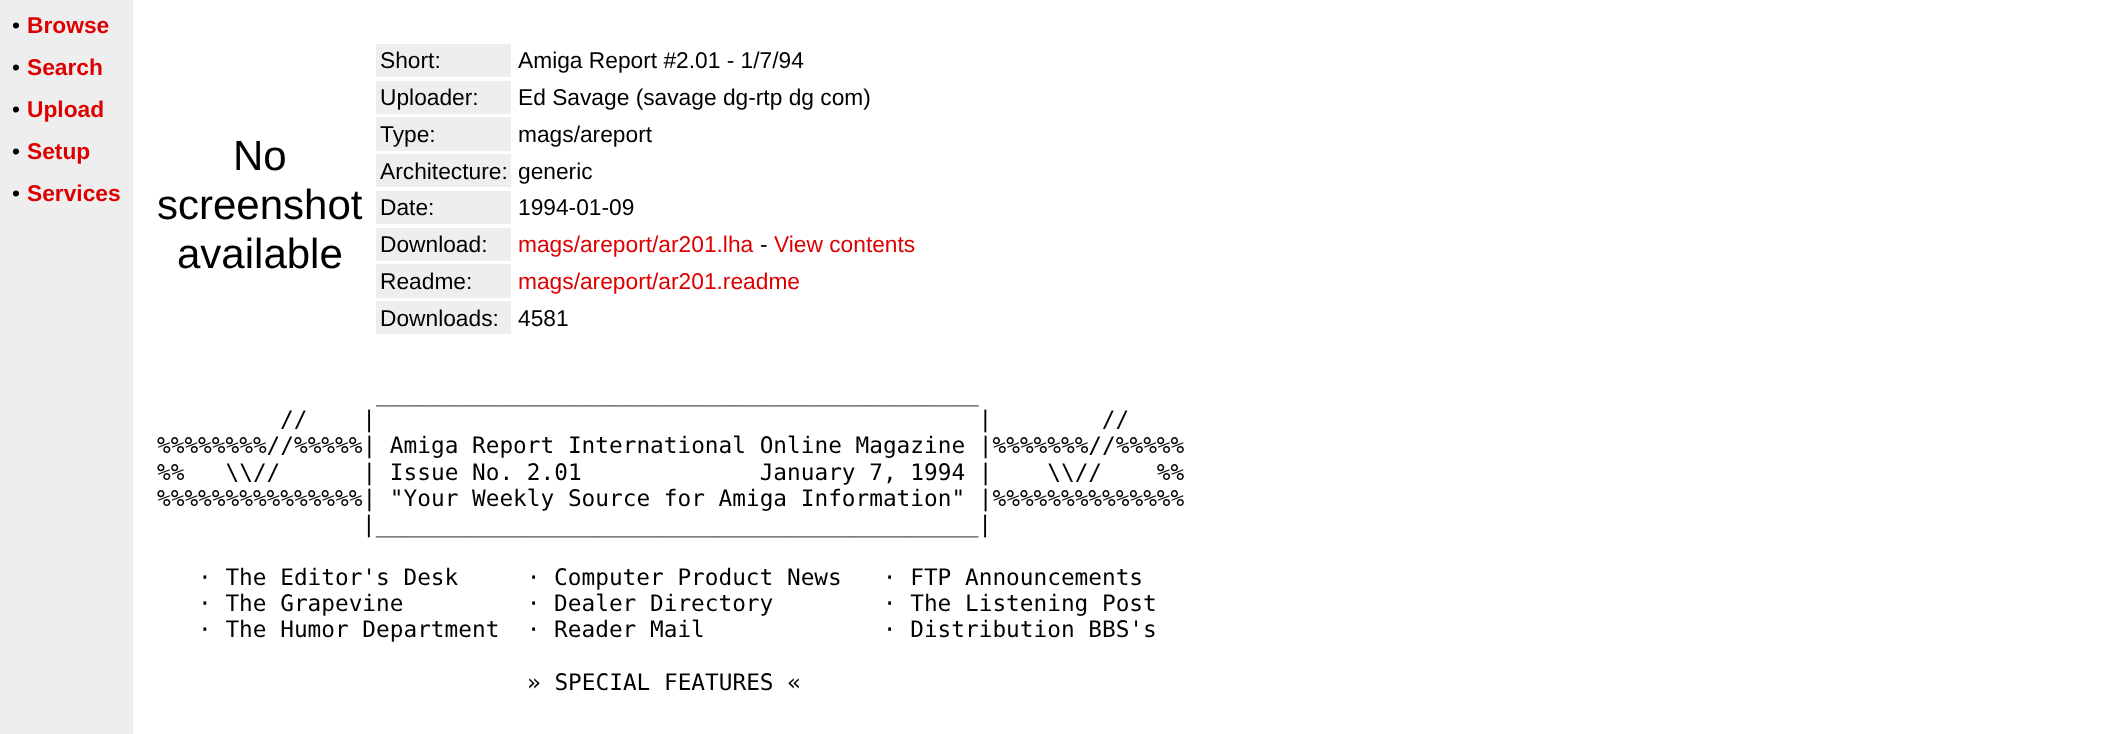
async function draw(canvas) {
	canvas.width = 2106;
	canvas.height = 734;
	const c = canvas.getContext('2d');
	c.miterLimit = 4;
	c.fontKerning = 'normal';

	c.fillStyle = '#fff';
	c.fillRect(0, 0, 2106, 734);
	c.fillStyle = '#eee';
	c.fillRect(0, 0, 133, 734);
	c.font = '22.75px Liberation Sans';
	c.fillStyle = '#000';
	c.fillText('•', 12, 33);
	c.font = 'bold 22.75px Liberation Sans';
	c.fillStyle = '#d00';
	c.fillText('Browse', 27, 33);
	c.font = '22.75px Liberation Sans';
	c.fillStyle = '#000';
	c.fillText('•', 12, 75);
	c.font = 'bold 22.75px Liberation Sans';
	c.fillStyle = '#d00';
	c.fillText('Search', 27, 75);
	c.font = '22.75px Liberation Sans';
	c.fillStyle = '#000';
	c.fillText('•', 12, 117);
	c.font = 'bold 22.75px Liberation Sans';
	c.fillStyle = '#d00';
	c.fillText('Upload', 27, 117);
	c.font = '22.75px Liberation Sans';
	c.fillStyle = '#000';
	c.fillText('•', 12, 159);
	c.font = 'bold 22.75px Liberation Sans';
	c.fillStyle = '#d00';
	c.fillText('Setup', 27, 159);
	c.font = '22.75px Liberation Sans';
	c.fillStyle = '#000';
	c.fillText('•', 12, 201);
	c.font = 'bold 22.75px Liberation Sans';
	c.fillStyle = '#d00';
	c.fillText('Services', 27, 201);
	c.font = '42px Liberation Sans';
	c.fillStyle = '#000';
	for (const [text, x, y] of [
		['No', 233, 170],
		['screenshot', 157, 219],
		['available', 177, 268],
	]) {
		c.fillText(text, x, y);
	}
	c.fillStyle = '#eee';
	c.fillRect(376, 44, 135, 33);
	c.font = '22.75px Liberation Sans';
	c.fillStyle = '#000';
	c.fillText('Short:', 380, 68);
	c.fillText('Amiga Report #2.01 - 1/7/94', 518, 68);
	c.fillStyle = '#eee';
	c.fillRect(376, 81, 135, 33);
	c.fillStyle = '#000';
	c.fillText('Uploader:', 380, 105);
	c.fillText('Ed Savage (savage dg-rtp dg com)', 518, 105);
	c.fillStyle = '#eee';
	c.fillRect(376, 117, 135, 34);
	c.fillStyle = '#000';
	c.fillText('Type:', 380, 142);
	c.fillText('mags/areport', 518, 142);
	c.fillStyle = '#eee';
	c.fillRect(376, 154, 135, 33);
	c.fillStyle = '#000';
	c.fillText('Architecture:', 380, 179);
	c.fillText('generic', 518, 179);
	c.fillStyle = '#eee';
	c.fillRect(376, 191, 135, 33);
	c.fillStyle = '#000';
	c.fillText('Date:', 380, 215);
	c.fillText('1994-01-09', 518, 215);
	c.fillStyle = '#eee';
	c.fillRect(376, 228, 135, 33);
	c.fillStyle = '#000';
	c.fillText('Download:', 380, 252);
	c.fillStyle = '#d00';
	c.fillText('mags/areport/ar201.lha', 518, 252);
	c.fillStyle = '#000';
	c.fillText('-', 760, 252);
	c.fillStyle = '#d00';
	c.fillText('View contents', 774, 252);
	c.fillStyle = '#eee';
	c.fillRect(376, 264, 135, 34);
	c.fillStyle = '#000';
	c.fillText('Readme:', 380, 289);
	c.fillStyle = '#d00';
	c.fillText('mags/areport/ar201.readme', 518, 289);
	c.fillStyle = '#eee';
	c.fillRect(376, 301, 135, 33);
	c.fillStyle = '#000';
	c.fillText('Downloads:', 380, 326);
	c.fillText('4581', 518, 326);
	c.font = '22.75px DejaVu Sans Mono';
	for (const [text, x, y] of [
		['____________________________________________', 376, 401],
		['//    |                                            |        //', 280, 427],
		['%%%%%%%%//%%%%%| Amiga Report International Online Magazine |%%%%%%%//%%%%%', 157, 453],
		['%%   \\\\//      | Issue No. 2.01             January 7, 1994 |    \\\\//    %%', 157, 480],
		['%%%%%%%%%%%%%%%| "Your Weekly Source for Amiga Information" |%%%%%%%%%%%%%%', 157, 506],
		['|____________________________________________|', 362, 532],
		['· The Editor\'s Desk     · Computer Product News   · FTP Announcements', 198, 585],
		['· The Grapevine         · Dealer Directory        · The Listening Post', 198, 611],
		['· The Humor Department  · Reader Mail             · Distribution BBS\'s', 198, 637],
		['» SPECIAL FEATURES «', 527, 690],
	]) {
		c.fillText(text, x, y);
	}
}

draw(document.querySelector('canvas'));
